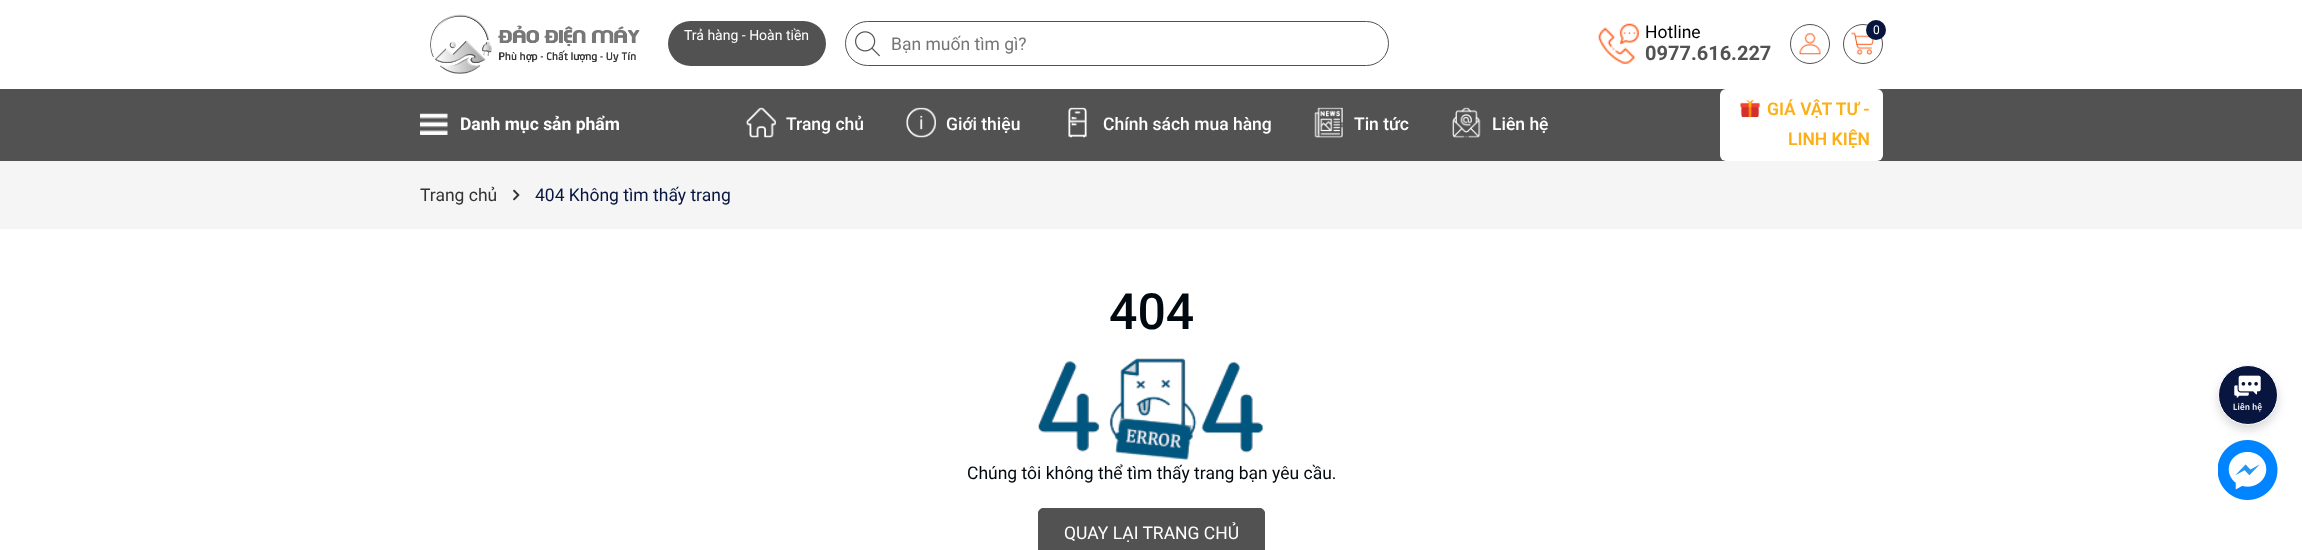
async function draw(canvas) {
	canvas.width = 2302;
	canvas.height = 550;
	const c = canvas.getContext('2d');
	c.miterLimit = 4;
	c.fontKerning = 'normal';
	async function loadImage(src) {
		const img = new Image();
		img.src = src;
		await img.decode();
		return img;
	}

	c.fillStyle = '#fff';
	c.fillRect(0, 0, 2302, 550);
	c.drawImage(await loadImage('img1.png'), 430, 14, 210, 60);
	c.fillStyle = '#525252';
	c.beginPath();
	c.roundRect(668, 21, 158, 45, 22.5);
	c.fill();
	c.font = '14px Roboto';
	c.fillStyle = '#fff';
	c.fillText('Trả hàng - Hoàn tiền', 684, 40);
	c.beginPath();
	c.roundRect(845.5, 21.5, 543, 44, 22);
	c.strokeStyle = '#525252';
	c.stroke();
	c.drawImage(await loadImage('img2.png'), 855, 31, 25, 26);
	c.font = '17.5px Roboto';
	c.fillStyle = '#757575';
	c.fillText('Bạn muốn tìm gì?', 891, 50);
	c.drawImage(await loadImage('img3.png'), 1598, 23, 41, 41);
	c.fillStyle = '#000';
	c.fillText('Hotline', 1645, 38);
	c.font = 'bold 20px Roboto';
	c.fillStyle = '#525252';
	c.fillText('0977.616.227', 1645, 60);
	c.beginPath();
	c.arc(1810, 44, 19.5, 0, 2 * Math.PI);
	c.stroke();
	c.drawImage(await loadImage('img4.png'), 1799, 33, 22, 22);
	c.beginPath();
	c.arc(1863, 44, 19.5, 0, 2 * Math.PI);
	c.stroke();
	c.drawImage(await loadImage('img5.png'), 1851, 32, 23, 23);
	c.fillStyle = '#07153f';
	c.beginPath();
	c.arc(1876, 30, 10, 0, 2 * Math.PI);
	c.fill();
	c.font = '12px Roboto';
	c.fillStyle = '#fff';
	c.fillText('0', 1873, 34);
	c.fillStyle = '#525252';
	c.fillRect(0, 89, 2302, 72);
	c.drawImage(await loadImage('img6.png'), 420, 113, 28, 22);
	c.font = 'bold 17.5px Roboto';
	c.fillStyle = '#fff';
	c.fillText('Danh mục sản phẩm', 460, 130);
	c.drawImage(await loadImage('img7.png'), 746, 107, 30, 31);
	c.font = '500 17.5px Roboto';
	c.fillText('Trang chủ', 786, 130);
	c.drawImage(await loadImage('img8.png'), 906, 107, 30, 31);
	c.fillText('Giới thiệu', 946, 130);
	c.drawImage(await loadImage('img9.png'), 1068, 107, 19, 31);
	c.fillText('Chính sách mua hàng', 1103, 130);
	c.drawImage(await loadImage('img10.png'), 1314, 107, 29, 31);
	c.fillText('Tin tức', 1354, 130);
	c.drawImage(await loadImage('img11.png'), 1452, 107, 29, 31);
	c.fillText('Liên hệ', 1492, 130);
	c.beginPath();
	c.roundRect(1720, 89, 163, 72, 6);
	c.fill();
	c.drawImage(await loadImage('img12.png'), 1740, 99, 21, 18);
	c.font = '600 17.5px Roboto';
	c.fillStyle = '#fcaf17';
	c.fillText('GIÁ VẬT TƯ -', 1767, 115);
	c.fillText('LINH KIỆN', 1788, 145);
	c.fillStyle = '#f5f5f5';
	c.fillRect(0, 161, 2302, 68);
	c.font = '17.5px Roboto';
	c.fillStyle = '#333';
	c.fillText('Trang chủ', 420, 201);
	c.drawImage(await loadImage('img13.png'), 513, 189, 7, 12);
	c.fillStyle = '#07153f';
	c.fillText('404 Không tìm thấy trang', 535, 201);
	c.font = '500 50px Roboto';
	c.fillStyle = '#00090f';
	c.fillText('404', 1109, 329);
	c.drawImage(await loadImage('img14.png'), 1038, 358, 226, 102);
	c.font = '17.5px Roboto';
	c.fillText('Chúng tôi không thể tìm thấy trang bạn yêu cầu.', 967, 479);
	c.fillStyle = '#525252';
	c.beginPath();
	c.roundRect(1038.5, 508.5, 226, 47, 4.5);
	c.fill();
	c.stroke();
	c.fillStyle = '#fff';
	c.fillText('QUAY LẠI TRANG CHỦ', 1064, 539);
	c.fillStyle = '#00000026';
	c.filter = 'blur(5px)';
	c.beginPath();
	c.roundRect(2218, 370, 60, 60, 30);
	c.fill();
	c.filter = 'none';
	c.fillStyle = '#07153f';
	c.beginPath();
	c.arc(2248, 395, 29.5, 0, 2 * Math.PI);
	c.fill();
	c.strokeStyle = '#fff';
	c.stroke();
	c.drawImage(await loadImage('img15.png'), 2233, 375, 29, 37);
	c.drawImage(await loadImage('img16.png'), 2218, 440, 60, 60);
}

draw(document.querySelector('canvas'));
